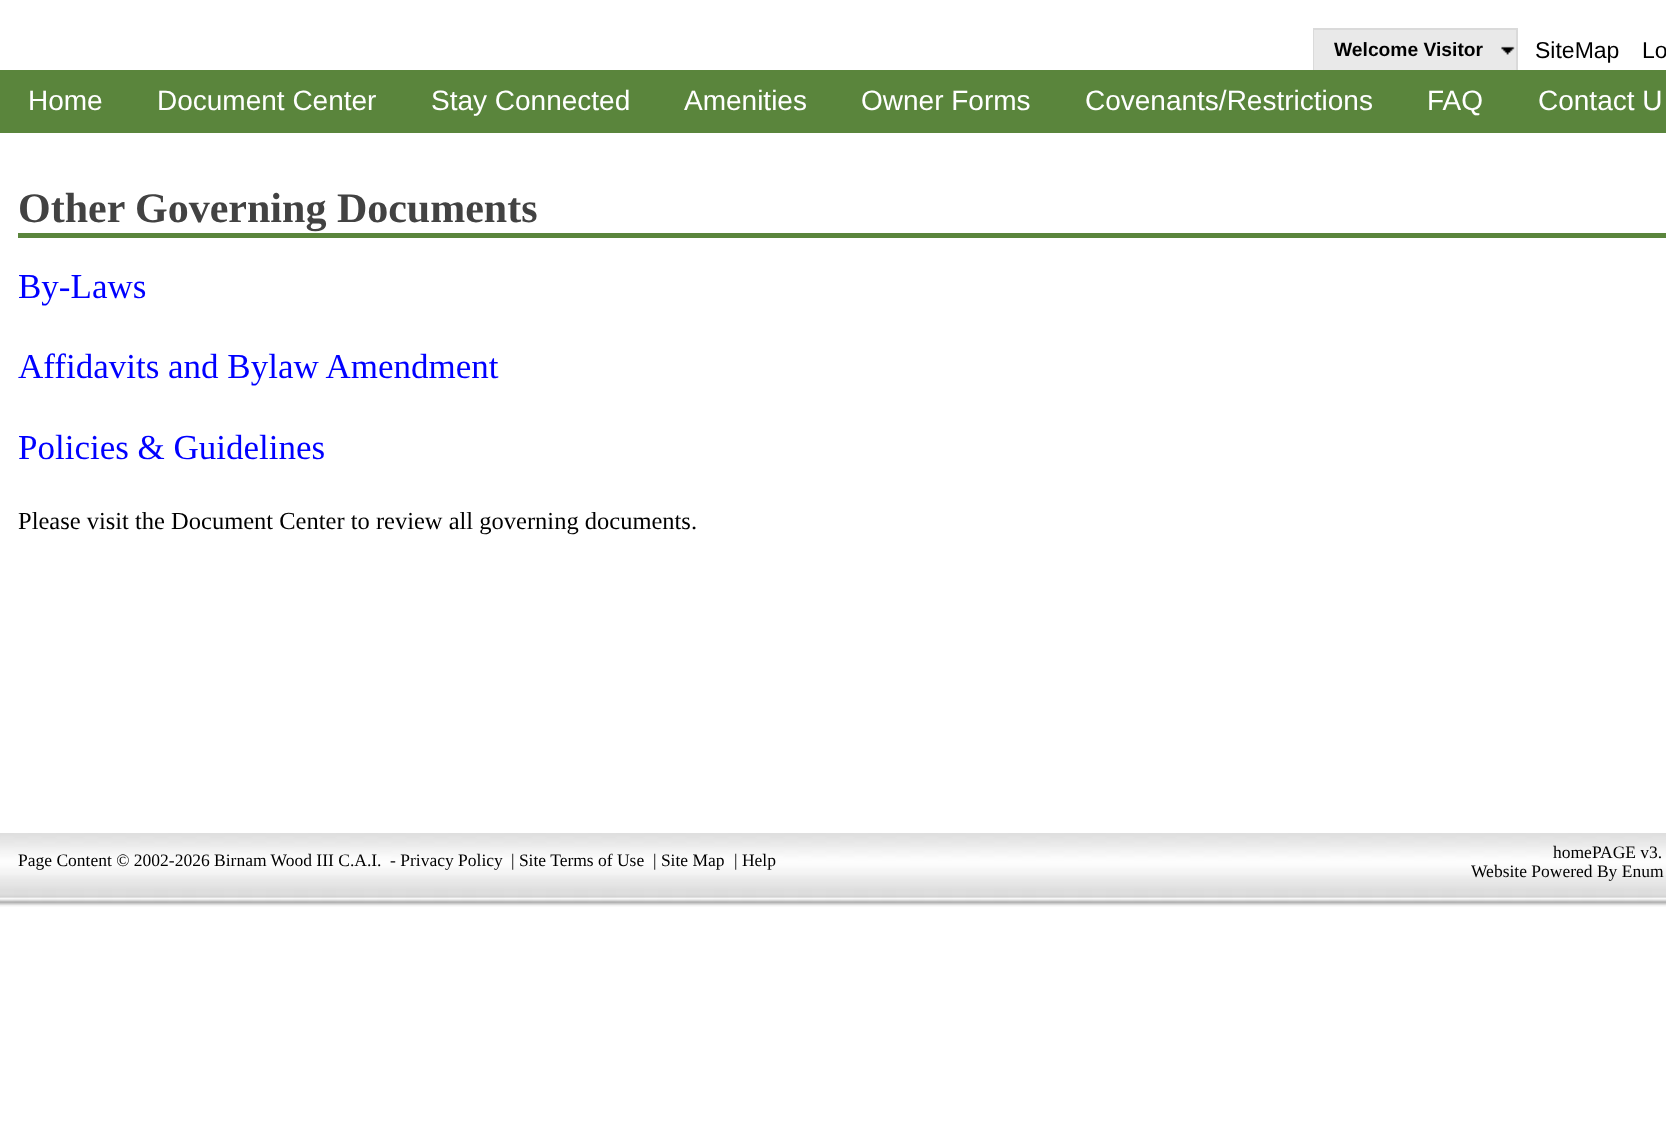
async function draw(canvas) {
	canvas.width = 1666;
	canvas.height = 1141;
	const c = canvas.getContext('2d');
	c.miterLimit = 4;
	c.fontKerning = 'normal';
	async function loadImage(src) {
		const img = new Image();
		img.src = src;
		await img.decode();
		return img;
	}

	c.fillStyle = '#fff';
	c.fillRect(0, 0, 1666, 1141);
	for (const [x, y, w, h, color] of [
		[1313, 28, 204, 2, '#dadada'],
		[1516, 28, 2, 42, '#dadada'],
		[1313, 28, 2, 42, '#dadada'],
		[1314, 30, 202, 40, '#e9e9e9'],
	]) {
		c.fillStyle = color;
		c.fillRect(x, y, w, h);
	}
	c.drawImage(await loadImage('img1.png'), 1501, 46, 14, 9);
	c.font = 'bold 19.25px Liberation Sans';
	c.fillStyle = '#000';
	c.fillText('Welcome Visitor', 1334, 56);
	c.font = '23px Liberation Sans';
	c.fillText('SiteMap', 1535, 58);
	c.fillText('Lo', 1642, 58);
	c.fillStyle = '#5a853c';
	c.fillRect(0, 70, 1666, 63);
	c.font = '28px Liberation Sans';
	c.fillStyle = '#fff';
	for (const [text, x, y] of [
		['Home', 28, 110],
		['Document Center', 157, 110],
		['Stay Connected', 431, 110],
		['Amenities', 684, 110],
		['Owner Forms', 861, 110],
		['Covenants/Restrictions', 1085, 110],
		['FAQ', 1427, 110],
		['Contact U', 1538, 110],
	]) {
		c.fillText(text, x, y);
	}
	c.fillStyle = '#5a853c';
	c.fillRect(18, 233, 1648, 5);
	c.font = 'bold 42px Liberation Serif';
	c.fillStyle = '#424242';
	c.fillText('Other Governing Documents', 18, 222);
	c.font = '35px Liberation Serif';
	c.fillStyle = '#00f';
	for (const [text, x, y] of [
		['By-Laws', 18, 298],
		['Affidavits and Bylaw Amendment', 18, 378],
		['Policies & Guidelines', 18, 459],
	]) {
		c.fillText(text, x, y);
	}
	c.font = '24.5px Liberation Serif';
	c.fillStyle = '#000';
	c.fillText('Please visit the Document Center to review all governing documents.', 18, 529);
	c.drawImage(await loadImage('img2.png'), 0, 833, 1666, 74);
	c.font = '17.5px Liberation Serif';
	for (const [text, x, y] of [
		['Page Content © 2002-2026 Birnam Wood III C.A.I.', 18, 866],
		['- Privacy Policy', 390, 866],
		['| Site Terms of Use', 511, 866],
		['| Site Map', 653, 866],
		['| Help', 734, 866],
		['homePAGE v3.', 1553, 858],
		['Website Powered By Enum', 1471, 877],
	]) {
		c.fillText(text, x, y);
	}
}

draw(document.querySelector('canvas'));
